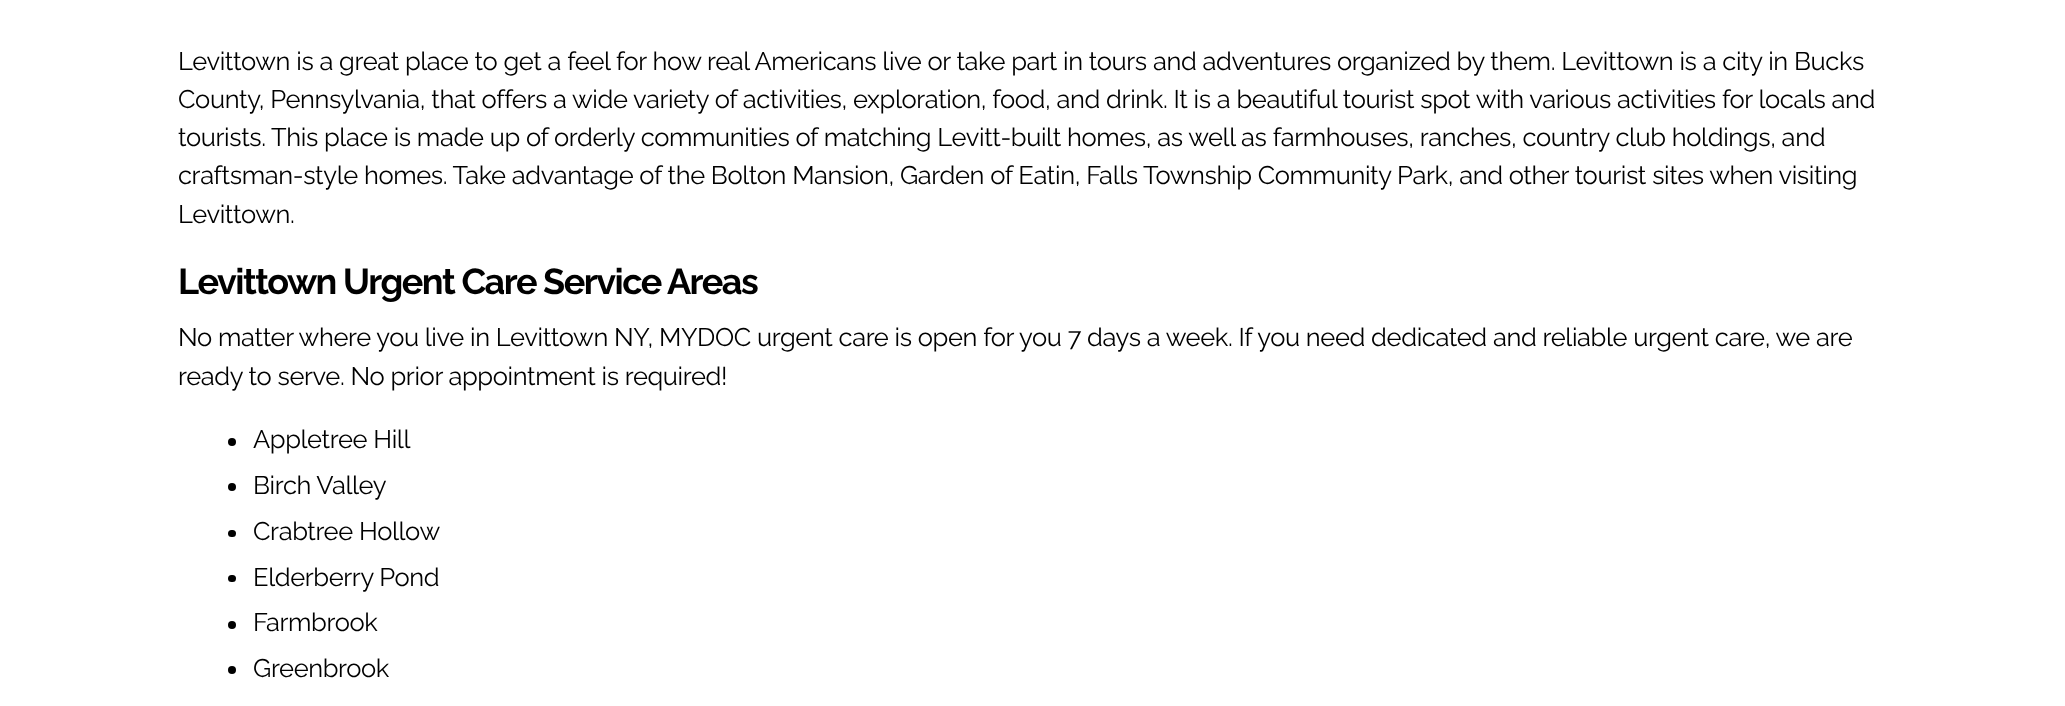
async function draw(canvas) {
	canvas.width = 2065;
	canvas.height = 706;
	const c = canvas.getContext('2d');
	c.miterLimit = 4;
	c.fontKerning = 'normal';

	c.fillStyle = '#fff';
	c.fillRect(0, 0, 2065, 706);
	c.letterSpacing = '-0.38px';
	c.font = '25.5px Raleway';
	c.fillStyle = '#000';
	for (const [text, x, y] of [
		['Levittown is a great place to get a feel for how real Americans live or take part in tours and adventures organized by them. Levittown is a city in Bucks', 178, 70],
		['County, Pennsylvania, that offers a wide variety of activities, exploration, food, and drink. It is a beautiful tourist spot with various activities for locals and', 178, 108],
		['tourists. This place is made up of orderly communities of matching Levitt-built homes, as well as farmhouses, ranches, country club holdings, and', 178, 146],
		['craftsman-style homes. Take advantage of the Bolton Mansion, Garden of Eatin, Falls Township Community Park, and other tourist sites when visiting', 178, 184],
		['Levittown.', 178, 223],
	]) {
		c.fillText(text, x, y);
	}
	c.letterSpacing = '-1.5px';
	c.font = 'bold 36px Raleway';
	c.fillText('Levittown Urgent Care Service Areas', 178, 294);
	c.letterSpacing = '-0.38px';
	c.font = '25.5px Raleway';
	c.fillText('No matter where you live in Levittown NY, MYDOC urgent care is open for you 7 days a week. If you need dedicated and reliable urgent care, we are', 178, 346);
	c.fillText('ready to serve. No prior appointment is required!', 178, 385);
	c.beginPath();
	c.arc(232, 442, 4, 0, 2 * Math.PI);
	c.fill();
	c.fillText('Appletree Hill', 253, 448);
	c.beginPath();
	c.arc(232, 487, 4, 0, 2 * Math.PI);
	c.fill();
	c.fillText('Birch Valley', 253, 494);
	c.beginPath();
	c.roundRect(228, 530, 8, 7, 3.5);
	c.fill();
	c.fillText('Crabtree Hollow', 253, 540);
	c.beginPath();
	c.roundRect(228, 575, 8, 7, 3.5);
	c.fill();
	c.fillText('Elderberry Pond', 253, 586);
	c.beginPath();
	c.arc(232, 625, 4, 0, 2 * Math.PI);
	c.fill();
	c.fillText('Farmbrook', 253, 631);
	c.beginPath();
	c.arc(232, 670, 4, 0, 2 * Math.PI);
	c.fill();
	c.fillText('Greenbrook', 253, 677);
}

draw(document.querySelector('canvas'));
